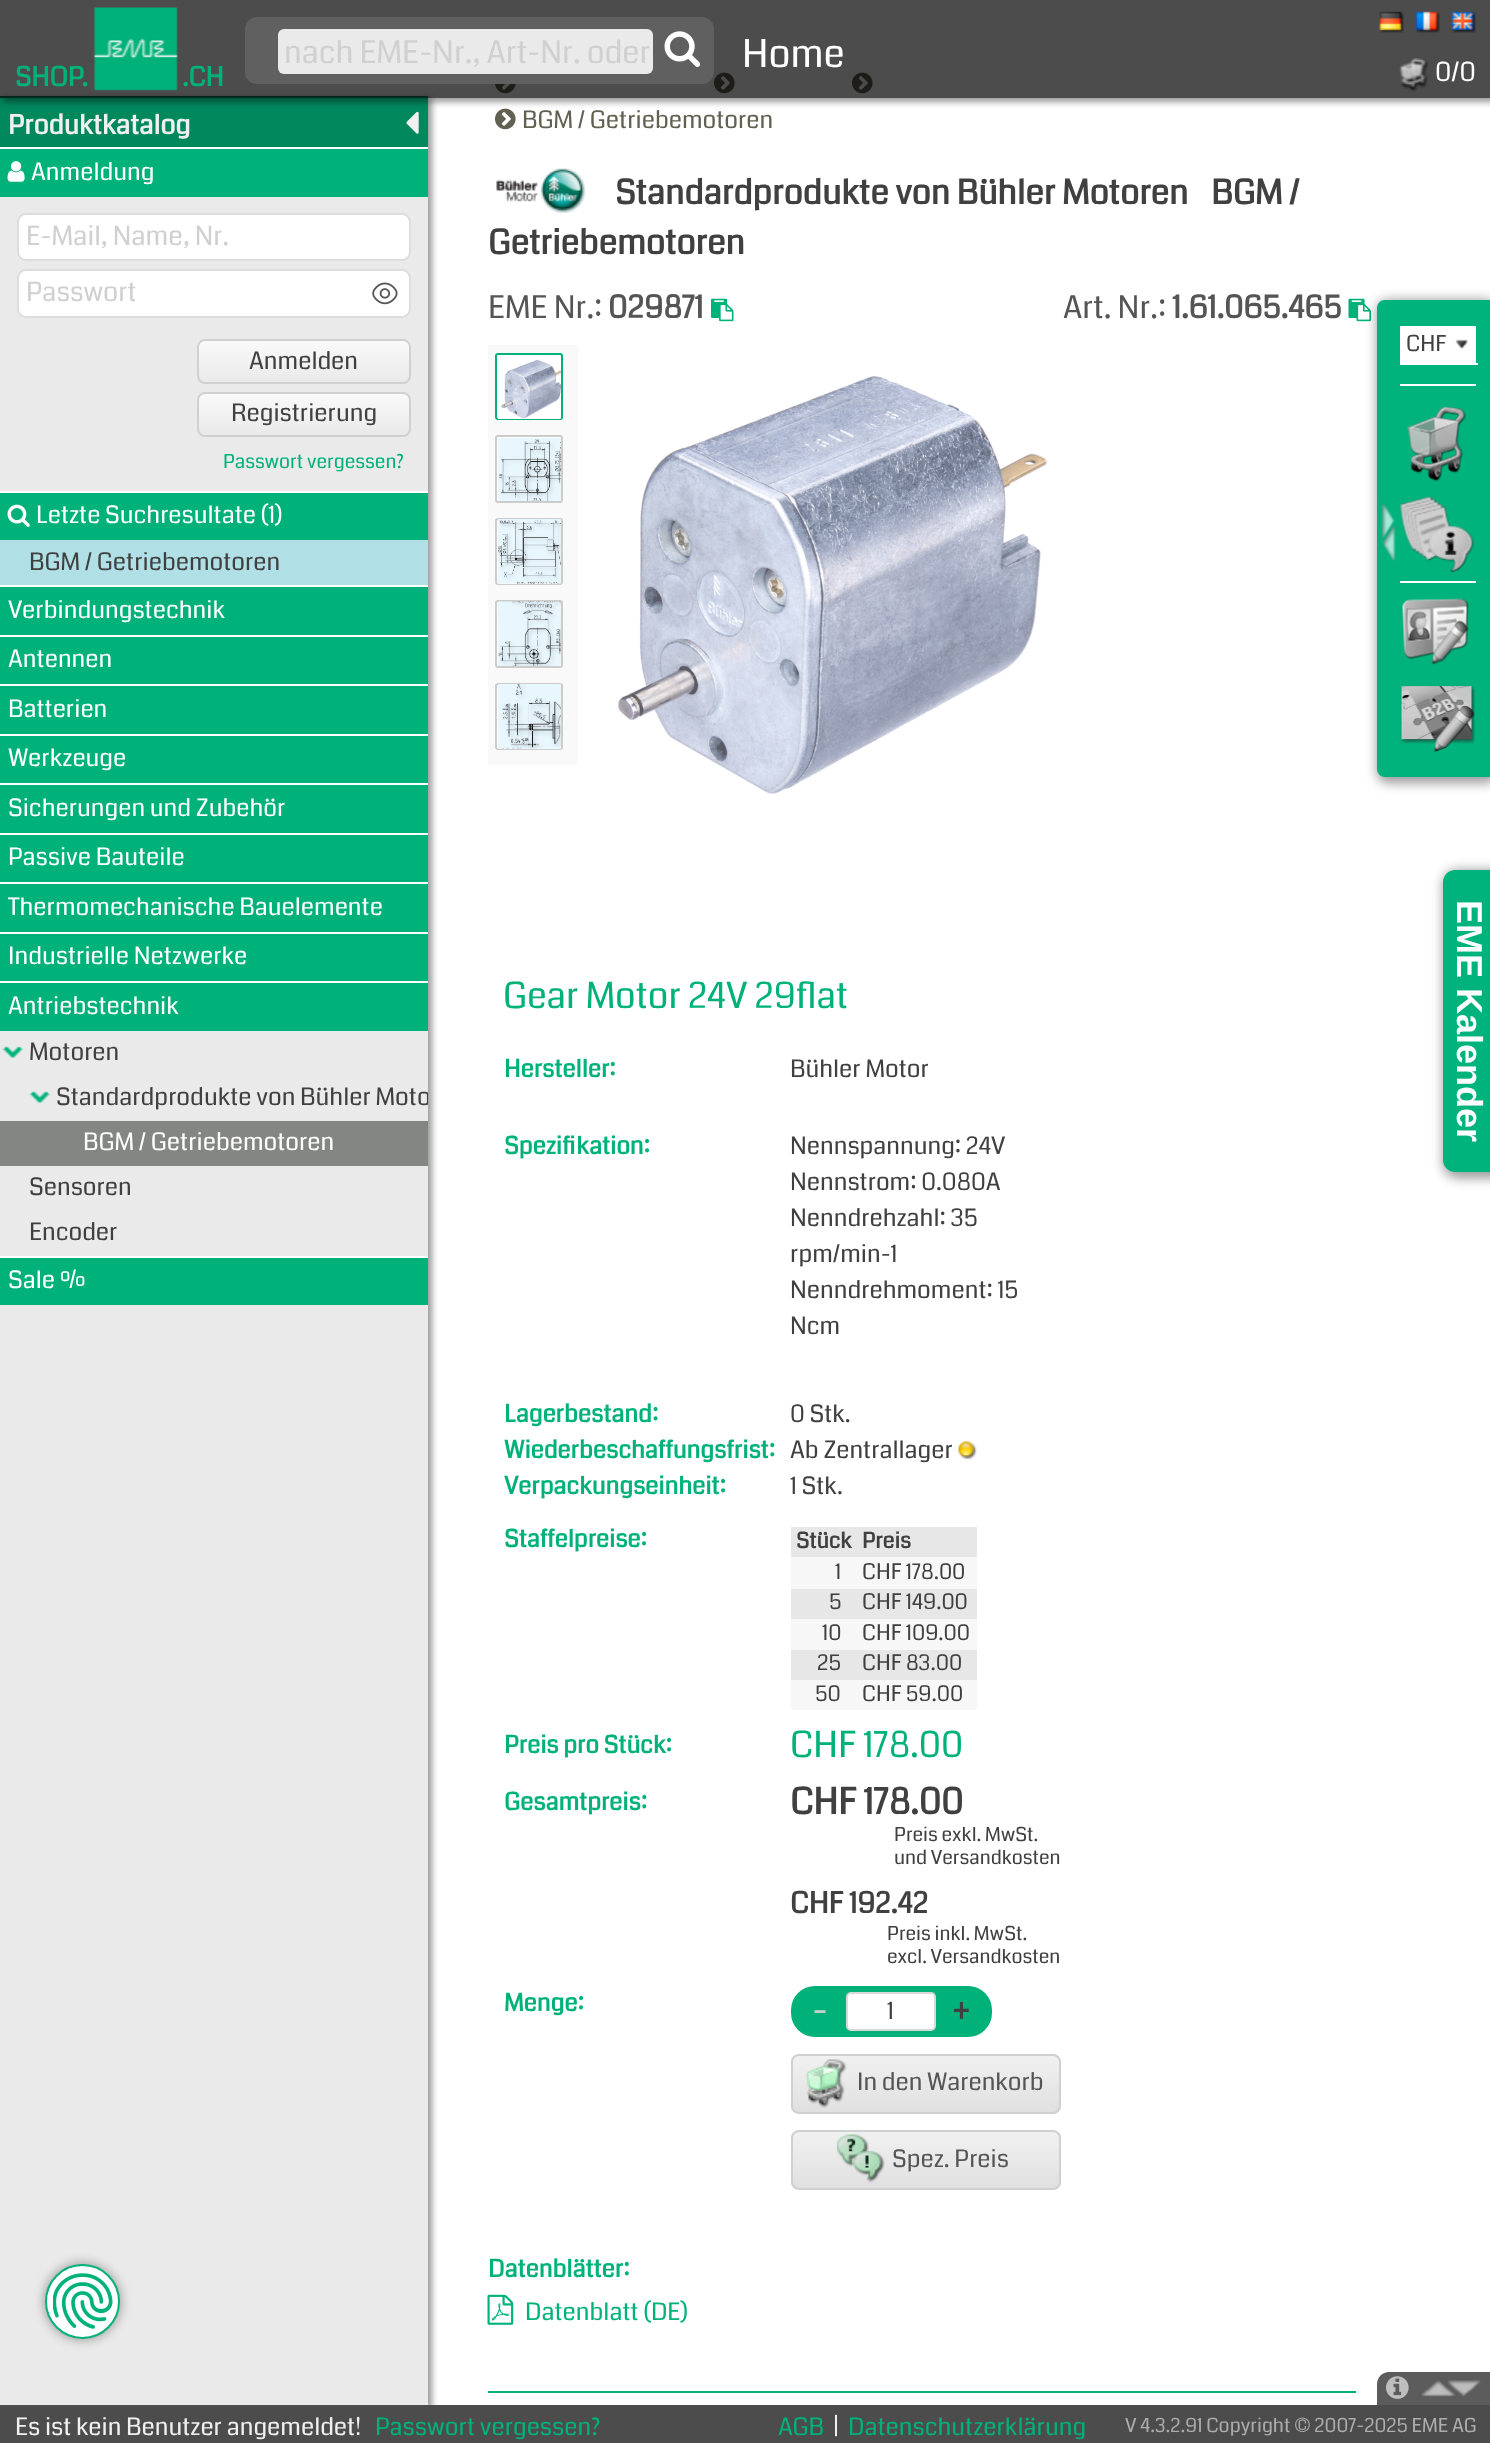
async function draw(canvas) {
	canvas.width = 1490;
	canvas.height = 2443;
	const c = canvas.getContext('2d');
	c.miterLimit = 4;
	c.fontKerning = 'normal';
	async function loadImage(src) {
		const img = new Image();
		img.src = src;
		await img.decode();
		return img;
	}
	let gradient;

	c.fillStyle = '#fff';
	c.fillRect(0, 0, 1490, 2443);
	c.fillStyle = '#00000066';
	c.filter = 'blur(3px)';
	c.beginPath();
	c.rect(2, 98, 430, 2311);
	c.fill();
	c.filter = 'none';
	c.fillStyle = '#00885d';
	c.fillRect(0, 96, 428, 51);
	c.drawImage(await loadImage('img7.png'), 406, 111, 13, 23);
	c.drawImage(await loadImage('img12.png'), 495, 84, 21, 10);
	c.drawImage(await loadImage('img13.png'), 714, 72, 21, 22);
	c.drawImage(await loadImage('img13.png'), 852, 72, 21, 22);
	c.drawImage(await loadImage('img13.png'), 495, 108, 21, 22);
	c.save();
	c.beginPath();
	c.moveTo(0, 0);
	c.lineTo(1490, 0);
	c.lineTo(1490, 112);
	c.lineTo(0, 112);
	c.closePath();
	c.moveTo(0, 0);
	c.lineTo(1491, 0);
	c.lineTo(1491, 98);
	c.lineTo(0, 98);
	c.closePath();
	c.clip('evenodd');
	c.fillStyle = '#00000066';
	c.filter = 'blur(3px)';
	c.beginPath();
	c.rect(2, 2, 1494, 100);
	c.fill();
	c.filter = 'none';
	c.restore();
	c.fillStyle = '#000000b3';
	c.fillRect(0, 0, 1490, 98);
	c.drawImage(await loadImage('img1.png'), 93, 7, 85, 84);
	c.fillStyle = '#606060';
	c.beginPath();
	c.roundRect(245, 17, 469, 67, 12);
	c.fill();
	c.fillStyle = '#eaeaea';
	c.beginPath();
	c.roundRect(278, 29, 375, 45, 6);
	c.fill();
	c.font = '31.25px Coda';
	c.fillStyle = '#d0d0d0';
	c.fillText('nach EME-Nr., Art-Nr. oder', 284, 63);
	c.drawImage(await loadImage('img2.png'), 664, 31, 37, 36);
	c.font = '38.5px Coda';
	c.fillStyle = '#fff';
	c.fillText('Home', 742, 67);
	c.font = 'bold 26.5px Coda';
	c.fillStyle = '#00b27a';
	c.fillText('SHOP.', 15, 86);
	c.fillText('.CH', 182, 86);
	c.drawImage(await loadImage('img3.png'), 1379, 11, 25, 22);
	c.drawImage(await loadImage('img4.png'), 1415, 11, 25, 22);
	c.drawImage(await loadImage('img5.png'), 1451, 11, 25, 22);
	c.drawImage(await loadImage('img6.png'), 1399, 58, 30, 34);
	c.font = '26.5px Coda';
	c.fillStyle = '#fff';
	c.fillText('0/0', 1435, 81);
	c.fillStyle = '#eaeaea';
	c.fillRect(0, 197, 428, 2208);
	c.font = 'bold 26.5px Coda';
	c.fillStyle = '#f0f0f0';
	c.fillText('Produktkatalog', 8, 134);
	c.fillStyle = '#00b27a';
	c.fillRect(0, 149, 428, 48);
	c.fillStyle = '#fff';
	c.fillRect(0, 147, 428, 2);
	c.drawImage(await loadImage('img8.png'), 7, 161, 18, 21);
	c.font = '24px Coda';
	c.fillText('Anmeldung', 31, 180);
	c.beginPath();
	c.roundRect(18, 214, 392, 46, 8);
	c.fill();
	c.strokeStyle = '#ddd';
	c.lineWidth = 2;
	c.stroke();
	c.font = '26.5px Coda';
	c.fillStyle = '#d0d0d0';
	c.fillText('E-Mail, Name, Nr.', 26, 245);
	c.fillStyle = '#fff';
	c.beginPath();
	c.roundRect(18, 270, 392, 47, 8);
	c.fill();
	c.stroke();
	c.fillStyle = '#d0d0d0';
	c.fillText('Passwort', 26, 301);
	c.drawImage(await loadImage('img9.png'), 372, 282, 26, 23);
	c.save();
	c.beginPath();
	c.roundRect(197, 339, 214, 45, 8);
	c.clip();
	gradient = c.createLinearGradient(198, 341, 198, 383);
	gradient.addColorStop(0.05, '#f9f9f9');
	gradient.addColorStop(1, '#e9e9e9');
	c.fillStyle = gradient;
	c.fillRect(197, 341, 214, 42);
	c.restore();
	c.beginPath();
	c.roundRect(198, 340, 212, 43, 7);
	c.strokeStyle = '#d0d0d0';
	c.stroke();
	c.font = '24px Coda';
	c.fillStyle = '#404040';
	c.fillText('Anmelden', 249, 369);
	c.save();
	c.beginPath();
	c.roundRect(197, 392, 214, 45, 8);
	c.clip();
	gradient = c.createLinearGradient(198, 393, 198, 435);
	gradient.addColorStop(0.05, '#f9f9f9');
	gradient.addColorStop(1, '#e9e9e9');
	c.fillStyle = gradient;
	c.fillRect(197, 393, 214, 42);
	c.restore();
	c.beginPath();
	c.roundRect(198, 393, 212, 43, 7);
	c.stroke();
	c.fillText('Registrierung', 231, 421);
	c.font = '19.25px Coda';
	c.fillStyle = '#00b27a';
	c.fillText('Passwort vergessen?', 223, 468);
	c.fillRect(0, 493, 428, 47);
	c.fillStyle = '#fff';
	c.fillRect(0, 491, 428, 2);
	c.drawImage(await loadImage('img10.png'), 7, 504, 23, 23);
	c.font = '24px Coda';
	c.fillText('Letzte Suchresultate (1)', 36, 523);
	c.fillStyle = '#b0e0e6';
	c.fillRect(0, 540, 428, 45);
	c.fillStyle = '#404040';
	c.fillText('BGM / Getriebemotoren', 29, 570);
	c.fillStyle = '#00b27a';
	c.fillRect(0, 587, 428, 48);
	c.fillStyle = '#fff';
	c.fillRect(0, 585, 428, 2);
	c.fillText('Verbindungstechnik', 8, 618);
	c.fillStyle = '#00b27a';
	c.fillRect(0, 637, 428, 47);
	c.fillStyle = '#fff';
	c.fillRect(0, 635, 428, 2);
	c.fillText('Antennen', 8, 667);
	c.fillStyle = '#00b27a';
	c.fillRect(0, 686, 428, 48);
	c.fillStyle = '#fff';
	c.fillRect(0, 684, 428, 2);
	c.fillText('Batterien', 8, 717);
	c.fillStyle = '#00b27a';
	c.fillRect(0, 736, 428, 47);
	c.fillStyle = '#fff';
	c.fillRect(0, 734, 428, 2);
	c.fillText('Werkzeuge', 8, 766);
	c.fillStyle = '#00b27a';
	c.fillRect(0, 785, 428, 48);
	c.fillStyle = '#fff';
	c.fillRect(0, 783, 428, 2);
	c.fillText('Sicherungen und Zubehör', 8, 816);
	c.fillStyle = '#00b27a';
	c.fillRect(0, 835, 428, 47);
	c.fillStyle = '#fff';
	c.fillRect(0, 833, 428, 2);
	c.fillText('Passive Bauteile', 8, 865);
	c.fillStyle = '#00b27a';
	c.fillRect(0, 884, 428, 48);
	c.fillStyle = '#fff';
	c.fillRect(0, 882, 428, 2);
	c.fillText('Thermomechanische Bauelemente', 8, 915);
	c.fillStyle = '#00b27a';
	c.fillRect(0, 934, 428, 47);
	c.fillStyle = '#fff';
	c.fillRect(0, 932, 428, 2);
	c.fillText('Industrielle Netzwerke', 8, 964);
	c.fillStyle = '#00b27a';
	c.fillRect(0, 983, 428, 48);
	c.fillStyle = '#fff';
	c.fillRect(0, 981, 428, 2);
	c.fillText('Antriebstechnik', 8, 1014);
	c.drawImage(await loadImage('img11.png'), 2, 1046, 22, 12);
	c.fillStyle = '#404040';
	c.fillText('Motoren', 29, 1060);
	c.drawImage(await loadImage('img11.png'), 29, 1091, 22, 12);
	c.save();
	c.beginPath();
	c.rect(0, 147, 428, 2258);
	c.clip();
	c.fillText('Standardprodukte von Bühler Moto', 56, 1105);
	c.restore();
	c.fillStyle = '#848683';
	c.fillRect(0, 1121, 428, 45);
	c.fillStyle = '#fff';
	c.fillText('BGM / Getriebemotoren', 83, 1150);
	c.fillStyle = '#404040';
	c.fillText('Sensoren', 29, 1195);
	c.fillText('Encoder', 29, 1240);
	c.fillStyle = '#00b27a';
	c.fillRect(0, 1258, 428, 47);
	c.fillStyle = '#fff';
	c.fillRect(0, 1256, 428, 2);
	c.fillText('Sale %', 8, 1288);
	c.fillStyle = '#626051';
	c.fillText('BGM / Getriebemotoren', 522, 128);
	c.drawImage(await loadImage('img14.png'), 496, 168, 90, 45);
	c.font = 'bold 33.6px Coda';
	c.fillStyle = '#404040';
	for (const [text, x, y] of [
		['Standardprodukte von Bühler Motoren', 615, 204],
		['BGM /', 1211, 204],
		['Getriebemotoren', 488, 254],
	]) {
		c.fillText(text, x, y);
	}
	c.font = '31.25px Coda';
	c.fillStyle = '#555';
	c.fillText('EME Nr.:', 488, 318);
	c.font = 'bold 31.25px Coda';
	c.fillText('029871', 608, 318);
	c.drawImage(await loadImage('img15.png'), 711, 298, 23, 24);
	c.font = '31.25px Coda';
	c.fillText('Art. Nr.:', 1063, 318);
	c.font = 'bold 31.25px Coda';
	c.fillText('1.61.065.465', 1172, 318);
	c.drawImage(await loadImage('img16.png'), 1348, 298, 23, 24);
	c.fillStyle = '#f9f9f9';
	c.fillRect(488, 345, 90, 420);
	c.fillStyle = '#fff';
	c.beginPath();
	c.roundRect(496, 354, 66, 65, 2);
	c.fill();
	c.strokeStyle = '#00b27a';
	c.stroke();
	c.beginPath();
	c.roundRect(498, 356, 63, 63, [0, 0, 1.5, 0]);
	c.fill();
	c.drawImage(await loadImage('img17.png'), 501, 359, 60, 60);
	c.beginPath();
	c.roundRect(496, 436, 66, 66, 2);
	c.fill();
	c.strokeStyle = '#ccc';
	c.stroke();
	c.drawImage(await loadImage('img18.png'), 498, 438, 63, 63);
	c.beginPath();
	c.roundRect(496, 519, 66, 65, 2);
	c.fill();
	c.stroke();
	c.beginPath();
	c.roundRect(498, 519, 63, 65, [0, 1.5, 1.5, 0]);
	c.fill();
	c.drawImage(await loadImage('img19.png'), 498, 519, 63, 65);
	c.beginPath();
	c.roundRect(496, 601, 66, 66, 2);
	c.fill();
	c.stroke();
	c.drawImage(await loadImage('img20.png'), 498, 601, 63, 65);
	c.beginPath();
	c.roundRect(496, 684, 66, 65, 2);
	c.fill();
	c.stroke();
	c.beginPath();
	c.roundRect(498, 684, 63, 65, [0, 1.5, 1.5, 0]);
	c.fill();
	c.drawImage(await loadImage('img21.png'), 498, 684, 63, 65);
	c.drawImage(await loadImage('img22.png'), 618, 376, 429, 418);
	c.font = '36px Coda';
	c.fillStyle = '#00b27a';
	c.fillText('Gear Motor 24V 29flat', 503, 1008);
	c.font = 'bold 24px Coda';
	c.fillText('Hersteller:', 504, 1077);
	c.font = '24px Coda';
	c.fillStyle = '#404040';
	c.fillText('Bühler Motor', 790, 1077);
	c.font = 'bold 24px Coda';
	c.fillStyle = '#00b27a';
	c.fillText('Spezifikation:', 504, 1154);
	c.font = '24px Coda';
	c.fillStyle = '#404040';
	for (const [text, x, y] of [
		['Nennspannung: 24V', 790, 1154],
		['Nennstrom: 0.080A', 790, 1190],
		['Nenndrehzahl: 35', 790, 1226],
		['rpm/min-1', 790, 1262],
		['Nenndrehmoment: 15', 790, 1298],
		['Ncm', 790, 1334],
	]) {
		c.fillText(text, x, y);
	}
	c.font = 'bold 24px Coda';
	c.fillStyle = '#00b27a';
	for (const [text, x, y] of [
		['Lagerbestand:', 504, 1422],
		['Wiederbeschaffungsfrist:', 504, 1458],
		['Verpackungseinheit:', 504, 1494],
	]) {
		c.fillText(text, x, y);
	}
	c.font = '24px Coda';
	c.fillStyle = '#404040';
	c.fillText('0 Stk.', 790, 1422);
	c.fillText('Ab Zentrallager', 790, 1458);
	c.drawImage(await loadImage('img23.png'), 958, 1441, 19, 19);
	c.fillText('1 Stk.', 790, 1494);
	c.font = 'bold 24px Coda';
	c.fillStyle = '#00b27a';
	c.fillText('Staffelpreise:', 504, 1547);
	c.fillStyle = '#e7e7e7';
	c.fillRect(791, 1527, 186, 30);
	c.font = 'bold 21.5px Coda';
	c.fillStyle = '#404040';
	c.fillText('Stück', 796, 1548);
	c.fillText('Preis', 862, 1548);
	c.fillStyle = '#f7f7f7';
	c.fillRect(791, 1557, 186, 32);
	c.font = '21.5px Coda';
	c.fillStyle = '#404040';
	c.fillText('1', 835, 1579);
	c.fillText('CHF 178.00', 862, 1579);
	c.fillStyle = '#e7e7e7';
	c.fillRect(791, 1589, 186, 30);
	c.fillStyle = '#404040';
	c.fillText('5', 829, 1609);
	c.fillText('CHF 149.00', 862, 1609);
	c.fillStyle = '#f7f7f7';
	c.fillRect(791, 1619, 186, 31);
	c.fillStyle = '#404040';
	c.fillText('10', 822, 1640);
	c.fillText('CHF 109.00', 862, 1640);
	c.fillStyle = '#e7e7e7';
	c.fillRect(791, 1650, 186, 30);
	c.fillStyle = '#404040';
	c.fillText('25', 817, 1670);
	c.fillText('CHF 83.00', 862, 1670);
	c.fillStyle = '#f7f7f7';
	c.fillRect(791, 1680, 186, 30);
	c.fillStyle = '#404040';
	c.fillText('50', 815, 1701);
	c.fillText('CHF 59.00', 862, 1701);
	c.font = 'bold 24px Coda';
	c.fillStyle = '#00b27a';
	c.fillText('Preis pro Stück:', 504, 1753);
	c.font = '36px Coda';
	c.fillText('CHF 178.00', 790, 1757);
	c.font = 'bold 24px Coda';
	c.fillText('Gesamtpreis:', 504, 1810);
	c.font = 'bold 36px Coda';
	c.fillStyle = '#404040';
	c.fillText('CHF 178.00', 790, 1814);
	c.font = '19.25px Coda';
	c.fillText('Preis exkl. MwSt.', 894, 1841);
	c.fillText('und Versandkosten', 894, 1864);
	c.font = 'bold 29px Coda';
	c.fillText('CHF 192.42', 790, 1913);
	c.font = '19.25px Coda';
	c.fillText('Preis inkl. MwSt.', 887, 1940);
	c.fillText('excl. Versandkosten', 887, 1963);
	c.font = 'bold 24px Coda';
	c.fillStyle = '#00b27a';
	c.fillText('Menge:', 504, 2011);
	c.beginPath();
	c.roundRect(791, 1986, 201, 51, 24);
	c.fill();
	c.font = '38.5px Coda';
	c.fillStyle = '#d0d0d0';
	c.fillText('-', 812, 2023);
	c.fillStyle = '#fff';
	c.beginPath();
	c.roundRect(847, 1993, 88, 37, 4);
	c.fill();
	c.strokeStyle = '#d8d8d8';
	c.stroke();
	c.font = '24px Coda';
	c.fillStyle = '#404040';
	c.fillText('1', 887, 2019);
	c.font = '38.5px Coda';
	c.fillText('+', 953, 2023);
	c.save();
	c.beginPath();
	c.roundRect(791, 2054, 270, 60, 8);
	c.clip();
	gradient = c.createLinearGradient(792, 2055, 792, 2112);
	gradient.addColorStop(0.05, '#f0f0f0');
	gradient.addColorStop(1, '#e0e0e0');
	c.fillStyle = gradient;
	c.fillRect(791, 2055, 270, 57);
	c.restore();
	c.beginPath();
	c.roundRect(792, 2055, 268, 58, 7);
	c.strokeStyle = '#d0d0d0';
	c.stroke();
	c.drawImage(await loadImage('img24.png'), 806, 2059, 41, 49);
	c.font = '24px Coda';
	c.fillStyle = '#555';
	c.fillText('In den Warenkorb', 857, 2090);
	c.save();
	c.beginPath();
	c.roundRect(791, 2130, 270, 60, 8);
	c.clip();
	gradient = c.createLinearGradient(792, 2132, 792, 2189);
	gradient.addColorStop(0.05, '#f0f0f0');
	gradient.addColorStop(1, '#e0e0e0');
	c.fillStyle = gradient;
	c.fillRect(791, 2132, 270, 57);
	c.restore();
	c.beginPath();
	c.roundRect(792, 2131, 268, 58, 7);
	c.stroke();
	c.drawImage(await loadImage('img25.png'), 836, 2134, 49, 49);
	c.fillText('Spez. Preis', 892, 2167);
	c.font = 'bold 24px Coda';
	c.fillStyle = '#00b27a';
	c.fillText('Datenblätter:', 488, 2277);
	c.drawImage(await loadImage('img26.png'), 487, 2294, 27, 31);
	c.font = '24px Coda';
	c.fillText('Datenblatt (DE)', 525, 2320);
	c.fillRect(488, 2391, 868, 2);
	c.fillStyle = '#00000066';
	c.filter = 'blur(6px)';
	c.beginPath();
	c.roundRect(1377, 300, 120, 483, 11);
	c.fill();
	c.filter = 'none';
	c.fillStyle = '#00b27b';
	c.beginPath();
	c.moveTo(1385, 300);
	c.lineTo(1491, 300);
	c.lineTo(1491, 777);
	c.lineTo(1385, 777);
	c.bezierCurveTo(1380.5, 777, 1377, 773.5, 1377, 769);
	c.lineTo(1377, 308);
	c.bezierCurveTo(1377, 303.5, 1380.5, 300, 1385, 300);
	c.closePath();
	c.fill();
	c.fillStyle = '#fff';
	c.fillRect(1400, 326, 76, 37);
	c.font = '22px Coda';
	c.fillStyle = '#404040';
	c.fillText('CHF', 1406, 351);
	c.drawImage(await loadImage('img27.png'), 1455, 339, 13, 10);
	c.fillStyle = '#fff';
	c.fillRect(1400, 363, 78, 2);
	c.fillRect(1400, 384, 76, 2);
	c.drawImage(await loadImage('img28.png'), 1407, 406, 59, 76);
	c.drawImage(await loadImage('img29.png'), 1381, 502, 15, 60);
	c.drawImage(await loadImage('img30.png'), 1399, 496, 75, 77);
	c.fillRect(1400, 581, 76, 2);
	c.drawImage(await loadImage('img31.png'), 1402, 598, 67, 67);
	c.drawImage(await loadImage('img32.png'), 1400, 685, 75, 67);
	c.fillStyle = '#00000066';
	c.filter = 'blur(6px)';
	c.beginPath();
	c.roundRect(1443, 870, 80, 308, 15);
	c.fill();
	c.filter = 'none';
	c.fillStyle = '#00b27b';
	c.beginPath();
	c.moveTo(1455, 870);
	c.lineTo(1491, 870);
	c.lineTo(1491, 1172);
	c.lineTo(1455, 1172);
	c.bezierCurveTo(1448.5, 1172, 1443, 1166.5, 1443, 1160);
	c.lineTo(1443, 882);
	c.bezierCurveTo(1443, 875.5, 1448.5, 870, 1455, 870);
	c.closePath();
	c.fill();
	c.font = 'bold 36px Liberation Sans';
	c.fillStyle = '#fff';
	c.save();
	c.translate(1457, 900);
	c.rotate(90 * Math.PI / 180);
	c.fillText('EME Kalender', 0, 0);
	c.restore();
	c.fillStyle = '#00000066';
	c.filter = 'blur(6px)';
	c.beginPath();
	c.roundRect(45, 2264, 75, 75, 37.5);
	c.fill();
	c.filter = 'none';
	c.fillStyle = '#fff';
	c.beginPath();
	c.arc(82.5, 2301.5, 36.5, 0, 2 * Math.PI);
	c.fill();
	c.strokeStyle = '#00b27a';
	c.stroke();
	c.drawImage(await loadImage('img33.png'), 53, 2273, 60, 56);
	c.fillStyle = '#5c5c5c';
	c.beginPath();
	c.moveTo(1389, 2372);
	c.lineTo(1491, 2372);
	c.lineTo(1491, 2405);
	c.lineTo(1377, 2405);
	c.lineTo(1377, 2384);
	c.bezierCurveTo(1377, 2377.5, 1382.5, 2372, 1389, 2372);
	c.closePath();
	c.fill();
	c.drawImage(await loadImage('img34.png'), 1419, 2380, 62, 17);
	c.drawImage(await loadImage('img35.png'), 1386, 2376, 23, 23);
	c.fillStyle = '#4c4c4c';
	c.fillRect(0, 2405, 1490, 38);
	c.font = '24px Coda';
	c.fillStyle = '#f0f0f0';
	c.fillText('Es ist kein Benutzer angemeldet!', 15, 2435);
	c.fillStyle = '#00b27a';
	c.fillText('Passwort vergessen?', 375, 2435);
	c.fillText('AGB', 778, 2435);
	c.fillStyle = '#f0f0f0';
	c.fillText('|', 833, 2435);
	c.fillStyle = '#00b27a';
	c.fillText('Datenschutzerklärung', 848, 2435);
	c.font = '19.25px Coda';
	c.fillStyle = '#acacac';
	c.fillText('V 4.3.2.91 Copyright © 2007-2025 EME AG', 1125, 2432);
}

draw(document.querySelector('canvas'));
